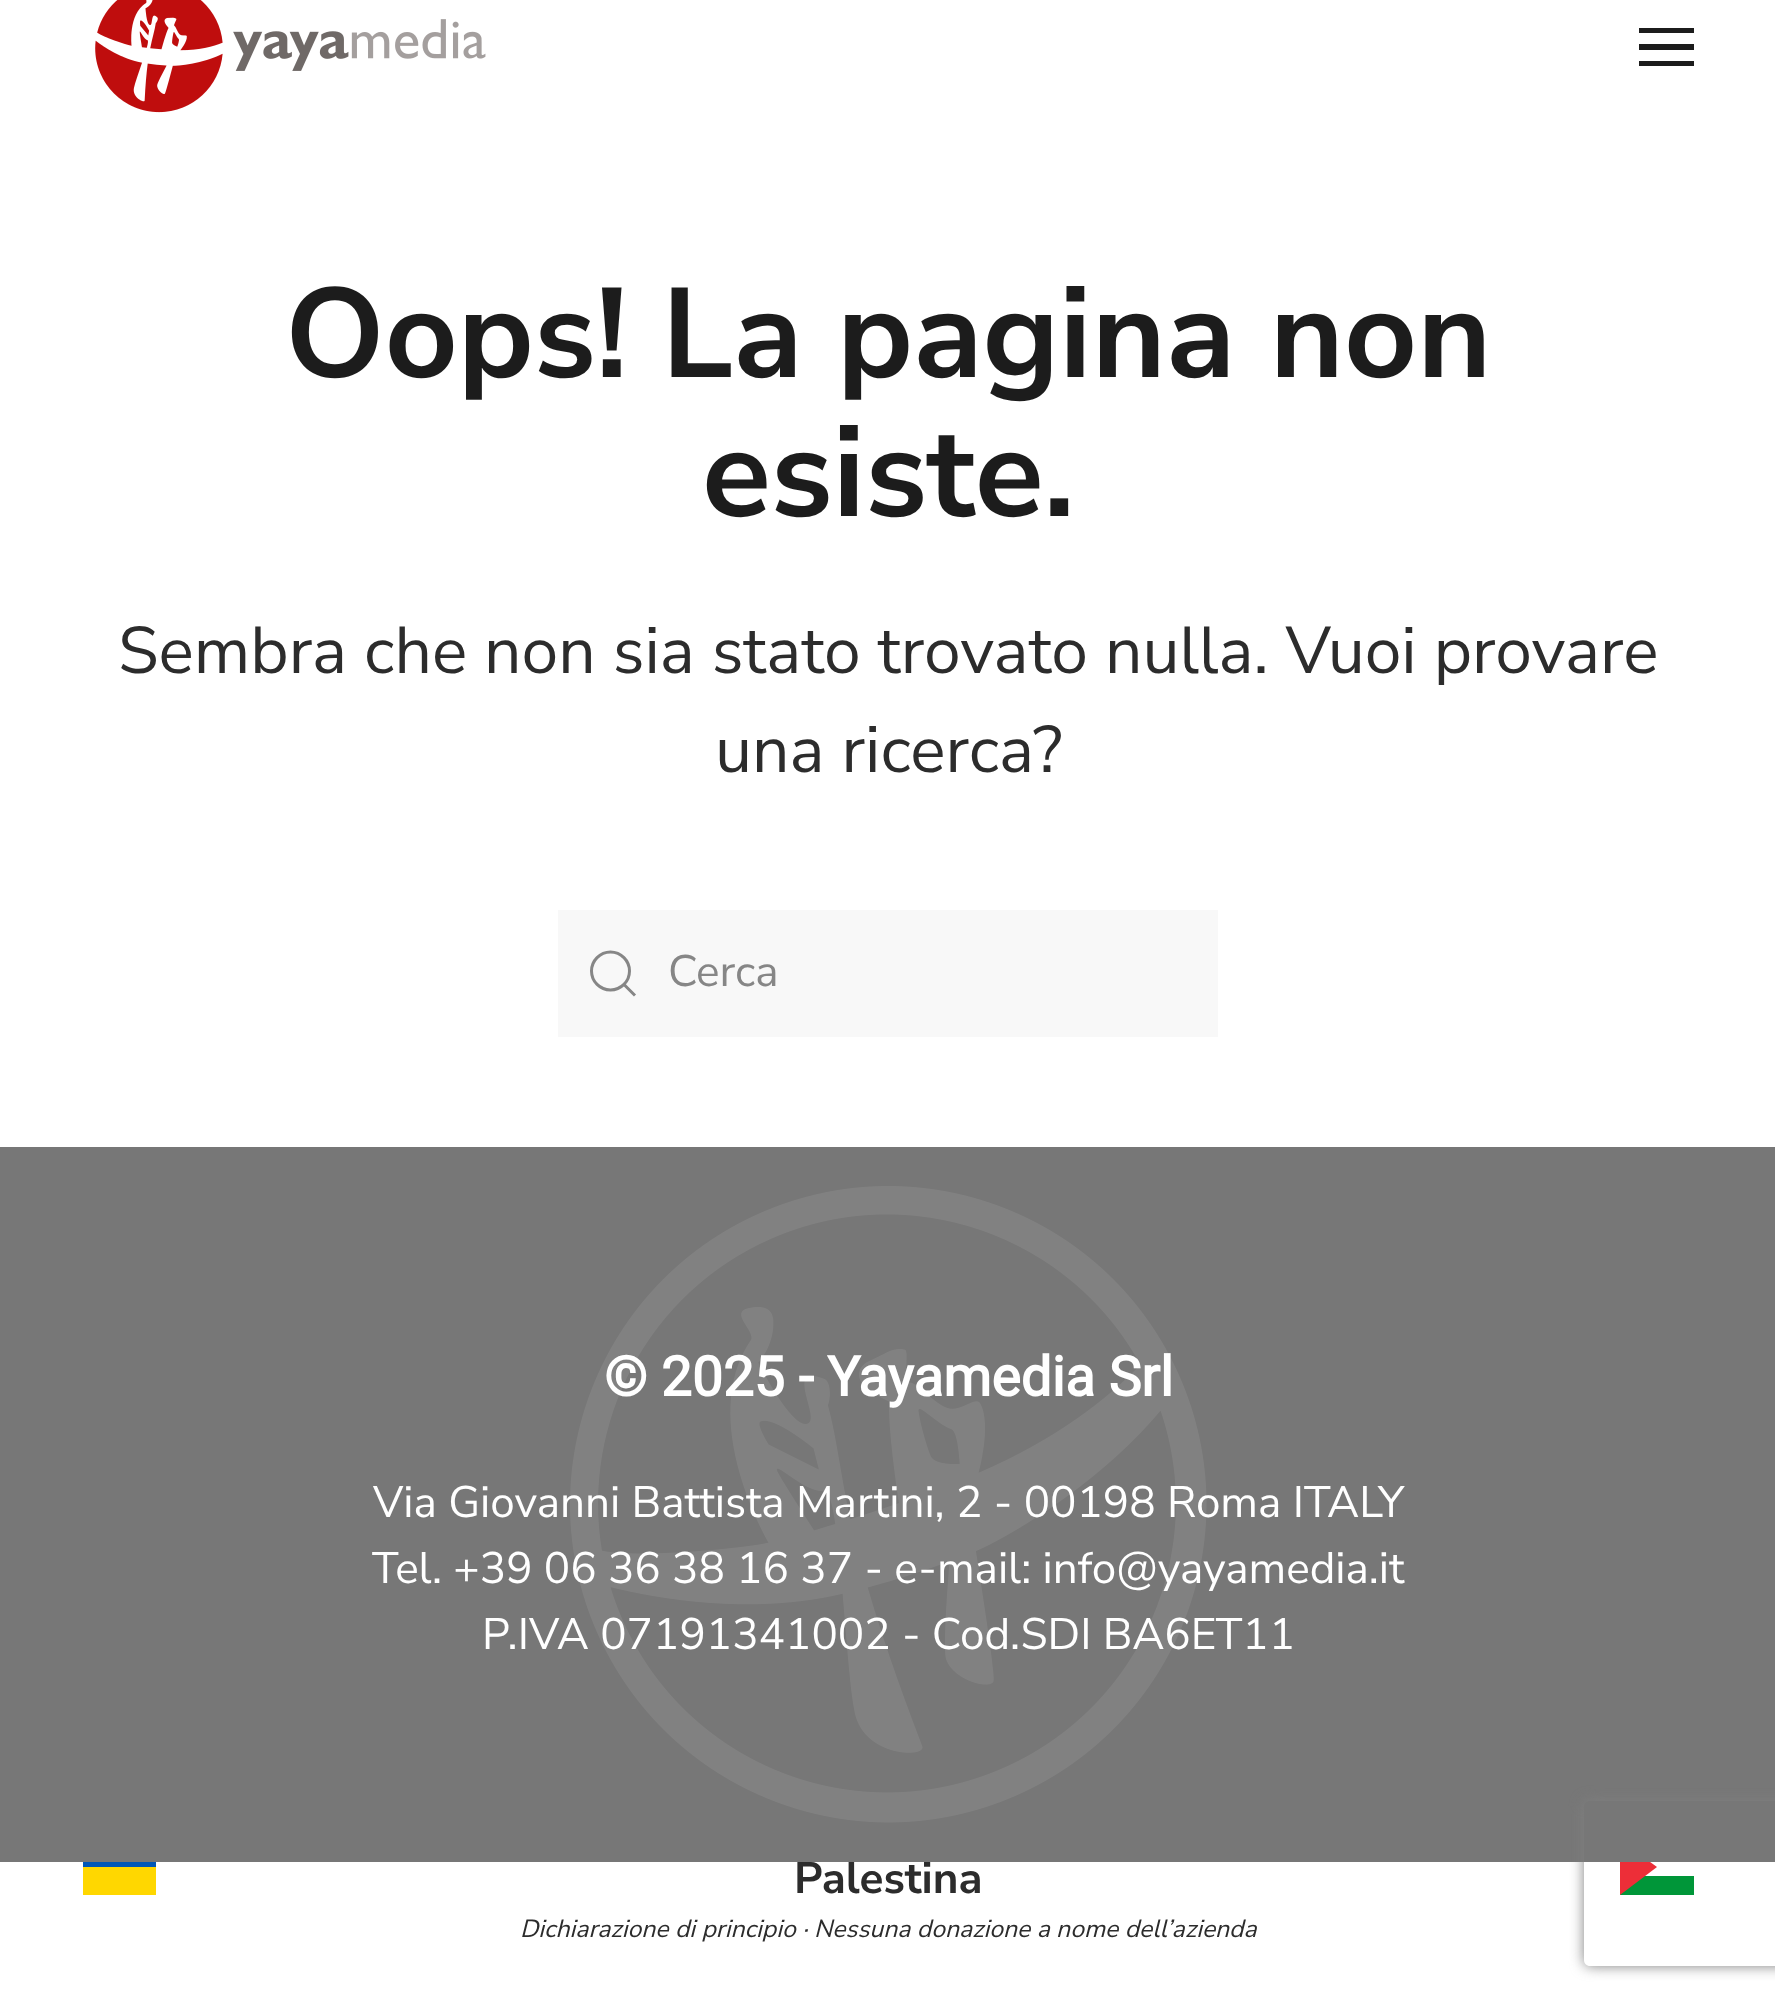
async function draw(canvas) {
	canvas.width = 1775;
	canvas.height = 2004;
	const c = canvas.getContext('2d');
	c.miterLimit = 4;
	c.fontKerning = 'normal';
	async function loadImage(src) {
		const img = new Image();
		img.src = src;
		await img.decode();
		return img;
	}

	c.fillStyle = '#fff';
	c.fillRect(0, 0, 1775, 2004);
	c.drawImage(await loadImage('img1.png'), 95, 0, 391, 113);
	for (const [x, y, w, h, color] of [
		[1639, 28, 55, 5, '#1c1c1c'],
		[1639, 44, 55, 6, '#1c1c1c'],
		[1639, 61, 55, 5, '#1c1c1c'],
	]) {
		c.fillStyle = color;
		c.fillRect(x, y, w, h);
	}
	c.font = '200 127px Nunito Sans';
	c.fillText('Oops! La pagina non', 285, 377);
	c.fillText('esiste.', 702, 516);
	c.font = '200 66px "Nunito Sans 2"';
	c.fillStyle = '#2c2c2c';
	c.fillText('Sembra che non sia stato trovato nulla. Vuoi provare', 118, 673);
	c.fillText('una ricerca?', 715, 772);
	c.fillStyle = '#f8f8f8';
	c.fillRect(558, 910, 660, 127);
	c.beginPath();
	c.arc(610.5, 971, 19, 0, 2 * Math.PI);
	c.strokeStyle = '#868686';
	c.lineWidth = 3;
	c.stroke();
	c.beginPath();
	c.moveTo(624, 984.5);
	c.lineTo(635, 995.5);
	c.closePath();
	c.stroke();
	c.font = '200 44px "Nunito Sans 2"';
	c.fillStyle = '#868686';
	c.fillText('Cerca', 668, 986);
	c.font = '200 44px Nunito Sans';
	c.fillStyle = '#2c2c2c';
	c.fillText('Palestina', 794, 1893);
	c.fillStyle = '#009639';
	c.fillRect(1620, 1876, 74, 19);
	c.fillStyle = '#ed2e38';
	c.beginPath();
	c.moveTo(1620, 1840);
	c.lineTo(1657, 1867);
	c.lineTo(1620, 1895);
	c.closePath();
	c.fill();
	c.fillStyle = '#777';
	c.fillRect(0, 1147, 1775, 715);
	c.drawImage(await loadImage('img2.png'), 570, 1186, 637, 637);
	c.font = 'bold 55px Roboto';
	c.fillStyle = '#fff';
	c.fillText('© 2025 - Yayamedia Srl', 604, 1396);
	c.font = '200 44px "Nunito Sans 2"';
	for (const [text, x, y] of [
		['Via Giovanni Battista Martini, 2 - 00198 Roma ITALY', 373, 1517],
		['Tel. +39 06 36 38 16 37 - e-mail: info@yayamedia.it', 372, 1583],
		['P.IVA 07191341002 - Cod.SDI BA6ET11', 482, 1649],
	]) {
		c.fillText(text, x, y);
	}
	c.fillStyle = '#0057b8';
	c.fillRect(83, 1862, 73, 5);
	c.fillStyle = '#ffd700';
	c.fillRect(83, 1867, 73, 28);
	c.font = 'italic 200 24.75px Nunito Sans';
	c.fillStyle = '#2c2c2c';
	c.fillText('Dichiarazione di principio · Nessuna donazione a nome dell’azienda', 520, 1937);
	c.save();
	c.beginPath();
	c.moveTo(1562, 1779);
	c.lineTo(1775, 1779);
	c.lineTo(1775, 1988);
	c.lineTo(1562, 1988);
	c.closePath();
	c.moveTo(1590, 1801);
	c.lineTo(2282, 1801);
	c.bezierCurveTo(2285.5, 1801, 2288, 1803.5, 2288, 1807);
	c.lineTo(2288, 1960);
	c.bezierCurveTo(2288, 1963.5, 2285.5, 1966, 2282, 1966);
	c.lineTo(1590, 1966);
	c.bezierCurveTo(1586.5, 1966, 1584, 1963.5, 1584, 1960);
	c.lineTo(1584, 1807);
	c.bezierCurveTo(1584, 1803.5, 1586.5, 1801, 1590, 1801);
	c.closePath();
	c.clip('evenodd');
	c.fillStyle = '#808080';
	c.filter = 'blur(7px)';
	c.beginPath();
	c.roundRect(1584, 1801, 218, 165, 6);
	c.fill();
	c.filter = 'none';
	c.restore();
}

draw(document.querySelector('canvas'));
